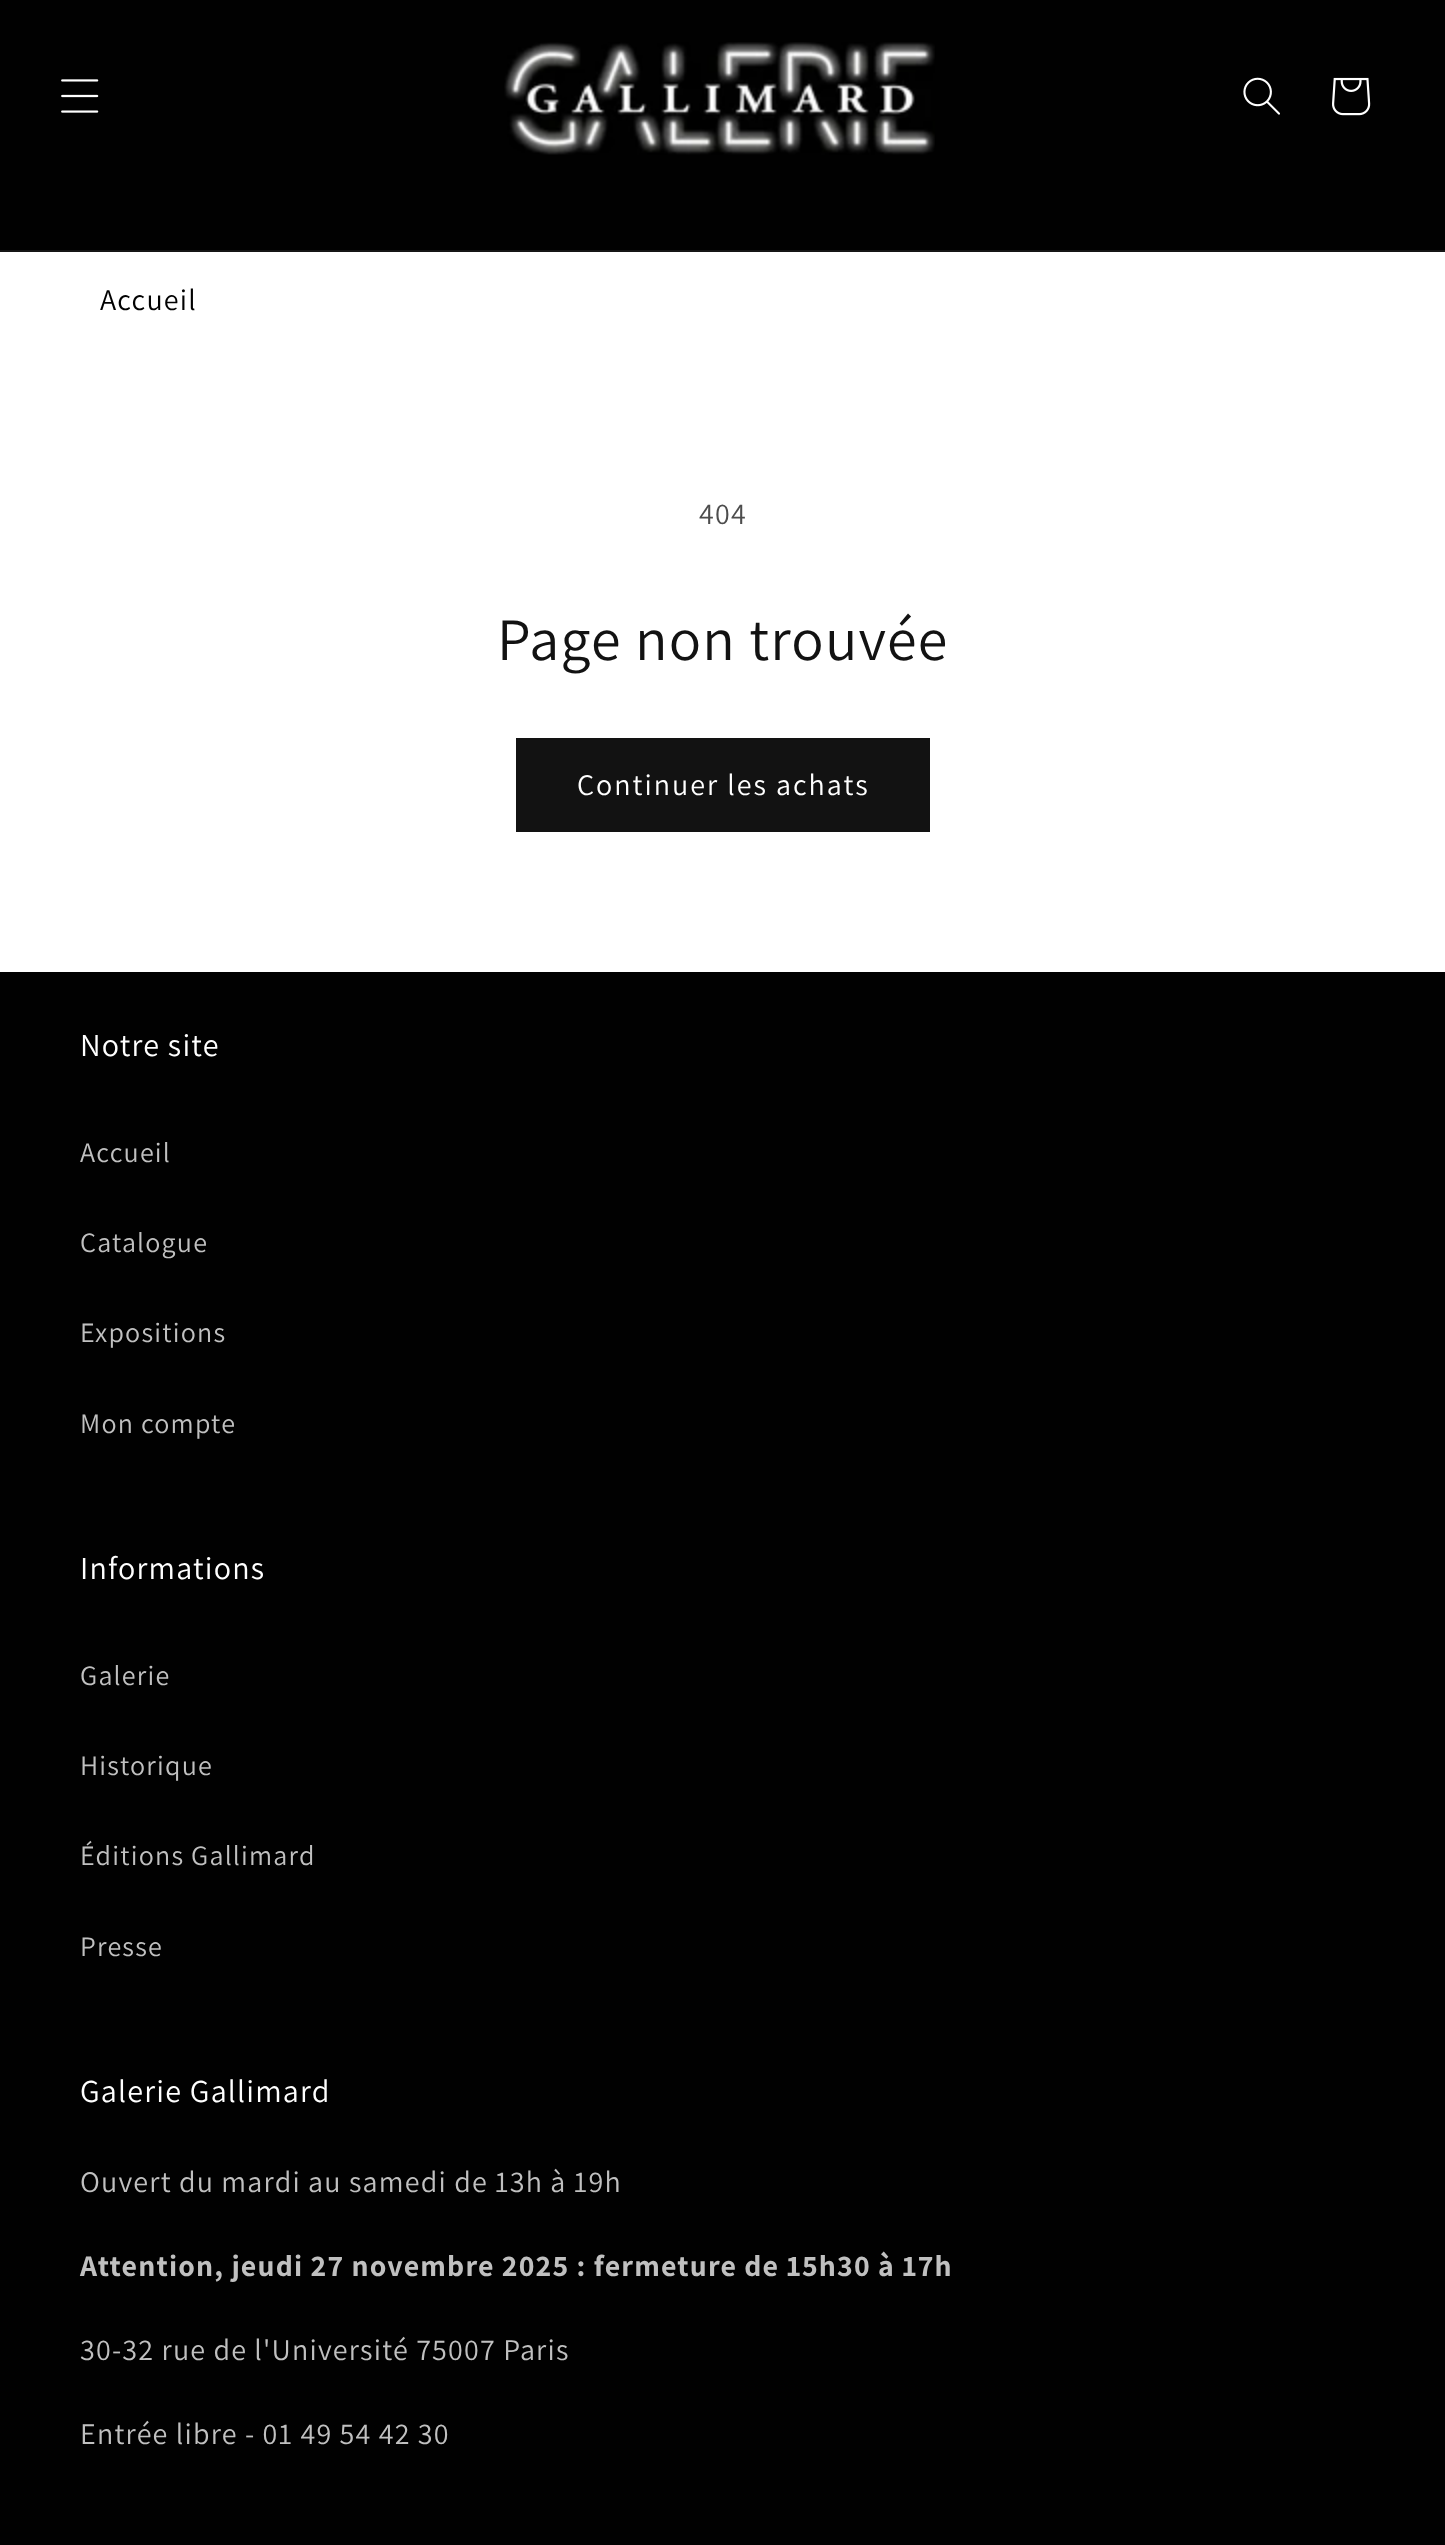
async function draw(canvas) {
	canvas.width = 1445;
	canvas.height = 2545;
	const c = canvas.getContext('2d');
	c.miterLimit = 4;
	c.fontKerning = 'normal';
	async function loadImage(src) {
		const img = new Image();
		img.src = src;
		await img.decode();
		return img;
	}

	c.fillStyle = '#fff';
	c.fillRect(0, 0, 1445, 2545);
	c.fillStyle = '#010101';
	c.fillRect(0, 0, 1445, 250);
	c.fillStyle = '#151515';
	c.fillRect(0, 250, 1445, 2);
	c.drawImage(await loadImage('img1.png'), 61, 79, 38, 34);
	c.drawImage(await loadImage('img2.png'), 504, 42, 431, 113);
	c.drawImage(await loadImage('img3.png'), 1243, 77, 37, 38);
	c.drawImage(await loadImage('img4.png'), 1332, 77, 39, 39);
	c.letterSpacing = '1.2px';
	c.font = '30px Assistant';
	c.fillStyle = '#010101';
	c.fillText('Accueil', 100, 310);
	c.fillStyle = '#4d4d4d';
	c.fillText('404', 699, 524);
	c.font = '60px Assistant';
	c.fillStyle = '#121212';
	c.fillText('Page non trouvée', 497, 660);
	c.fillRect(516, 738, 414, 94);
	c.letterSpacing = '2px';
	c.font = '30px Assistant';
	c.fillStyle = '#fff';
	c.fillText('Continuer les achats', 577, 795);
	c.fillStyle = '#010101';
	c.fillRect(0, 972, 1445, 1573);
	c.letterSpacing = '1.2px';
	c.font = '32px Assistant';
	c.fillStyle = '#fff';
	c.fillText('Notre site', 80, 1056);
	c.font = '28px Assistant';
	c.fillStyle = '#c0c0c0';
	for (const [text, x, y] of [
		['Accueil', 80, 1162],
		['Catalogue', 80, 1252],
		['Expositions', 80, 1342],
		['Mon compte', 80, 1433],
	]) {
		c.fillText(text, x, y);
	}
	c.font = '32px Assistant';
	c.fillStyle = '#fff';
	c.fillText('Informations', 80, 1579);
	c.font = '28px Assistant';
	c.fillStyle = '#c0c0c0';
	for (const [text, x, y] of [
		['Galerie', 80, 1685],
		['Historique', 80, 1775],
		['Éditions Gallimard', 80, 1865],
		['Presse', 80, 1956],
	]) {
		c.fillText(text, x, y);
	}
	c.font = '32px Assistant';
	c.fillStyle = '#fff';
	c.fillText('Galerie Gallimard', 80, 2102);
	c.font = '30px Assistant';
	c.fillStyle = '#c0c0c0';
	c.fillText('Ouvert du mardi au samedi de 13h à 19h', 80, 2192);
	c.font = 'bold 30px Assistant';
	c.fillText('Attention, jeudi 27 novembre 2025 : fermeture de 15h30 à 17h', 80, 2276);
	c.font = '30px Assistant';
	c.fillText('30-32 rue de l\'Université 75007 Paris', 80, 2360);
	c.fillText('Entrée libre - 01 49 54 42 30', 80, 2444);
}

draw(document.querySelector('canvas'));
